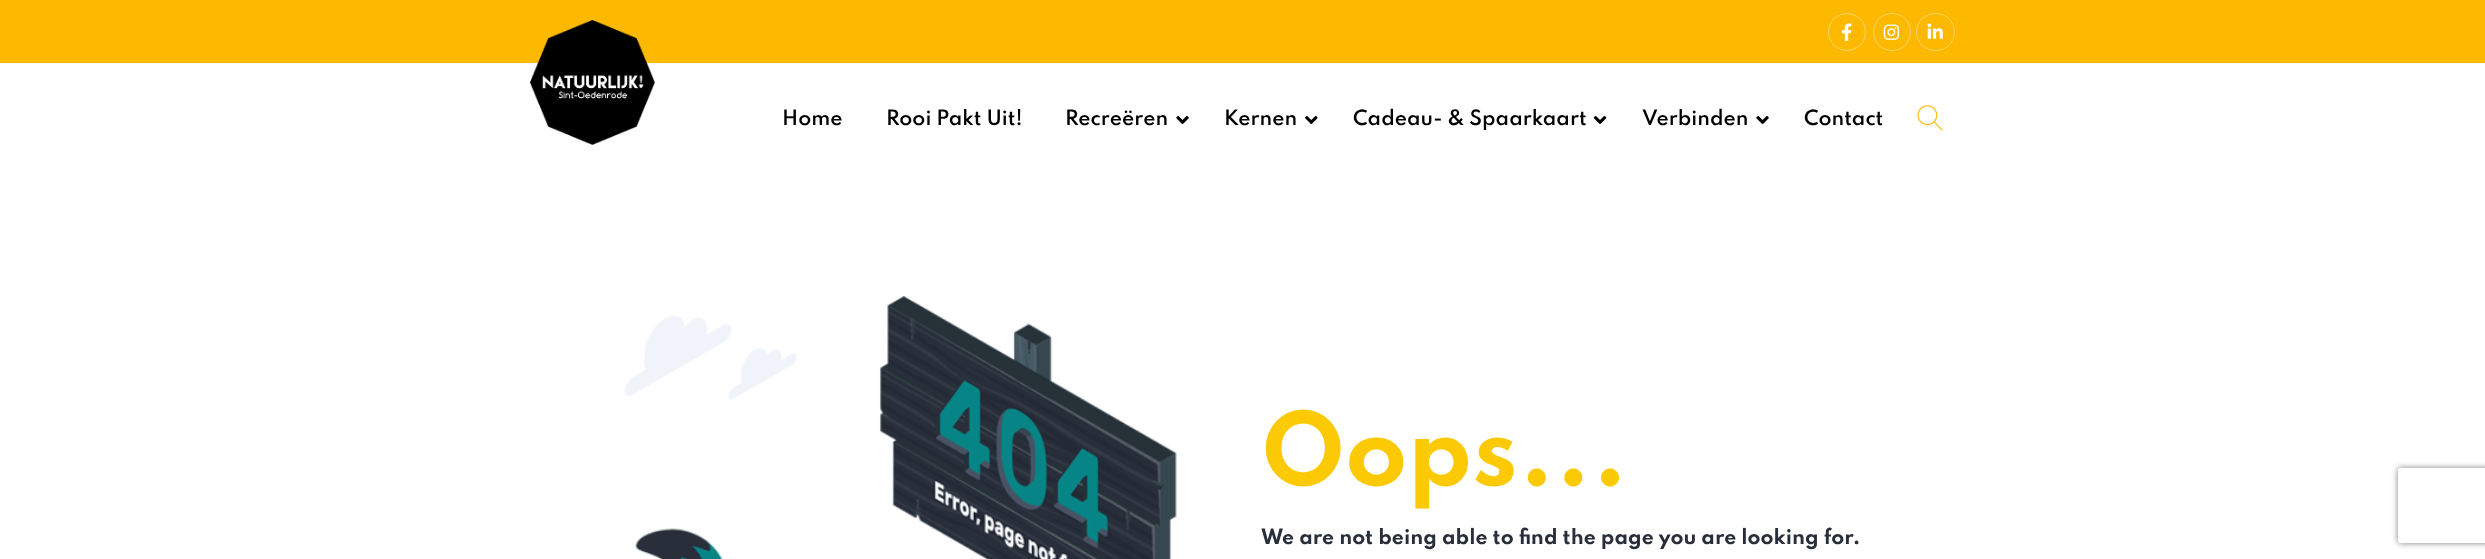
async function draw(canvas) {
	canvas.width = 2485;
	canvas.height = 559;
	const c = canvas.getContext('2d');
	c.miterLimit = 4;
	c.fontKerning = 'normal';
	async function loadImage(src) {
		const img = new Image();
		img.src = src;
		await img.decode();
		return img;
	}

	c.fillStyle = '#fff';
	c.fillRect(0, 0, 2485, 559);
	c.fillStyle = '#fcb900';
	c.fillRect(0, 0, 2485, 63);
	c.beginPath();
	c.arc(1847, 32, 18.5, 0, 2 * Math.PI);
	c.strokeStyle = '#fdd566';
	c.stroke();
	c.drawImage(await loadImage('img1.png'), 1842, 23, 10, 18);
	c.beginPath();
	c.arc(1892, 32, 18.5, 0, 2 * Math.PI);
	c.stroke();
	c.drawImage(await loadImage('img2.png'), 1883, 24, 17, 16);
	c.beginPath();
	c.roundRect(1916.5, 13.5, 38, 37, 18.5);
	c.stroke();
	c.drawImage(await loadImage('img3.png'), 1927, 23, 16, 16);
	c.drawImage(await loadImage('img4.png'), 530, 20, 125, 125);
	c.font = '600 18.75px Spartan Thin';
	c.fillStyle = '#000';
	for (const [text, x, y] of [
		['Home', 782, 125],
		['Rooi Pakt Uit!', 886, 125],
		['Recreëren', 1065, 125],
	]) {
		c.fillText(text, x, y);
	}
	c.drawImage(await loadImage('img5.png'), 1176, 116, 13, 8);
	c.fillText('Kernen', 1224, 125);
	c.drawImage(await loadImage('img6.png'), 1305, 116, 13, 8);
	c.fillText('Cadeau- & Spaarkaart', 1353, 125);
	c.drawImage(await loadImage('img7.png'), 1593, 116, 14, 8);
	c.fillText('Verbinden', 1642, 125);
	c.drawImage(await loadImage('img5.png'), 1756, 116, 13, 8);
	c.fillText('Contact', 1804, 125);
	c.drawImage(await loadImage('img8.png'), 1917, 105, 26, 26);
	c.drawImage(await loadImage('img9.png'), 624, 296, 553, 263);
	c.font = 'bold 90px Spartan Thin';
	c.fillStyle = '#fcca05';
	c.fillText('Oops...', 1261, 485);
	c.font = 'bold 18.75px Spartan Thin';
	c.fillStyle = '#282f3b';
	c.fillText('We are not being able to find the page you are looking for.', 1261, 544);
	c.save();
	c.beginPath();
	c.moveTo(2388, 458);
	c.lineTo(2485, 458);
	c.lineTo(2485, 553);
	c.lineTo(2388, 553);
	c.closePath();
	c.moveTo(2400.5, 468);
	c.lineTo(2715.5, 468);
	c.bezierCurveTo(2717, 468, 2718, 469, 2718, 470.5);
	c.lineTo(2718, 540.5);
	c.bezierCurveTo(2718, 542, 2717, 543, 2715.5, 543);
	c.lineTo(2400.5, 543);
	c.bezierCurveTo(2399, 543, 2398, 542, 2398, 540.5);
	c.lineTo(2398, 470.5);
	c.bezierCurveTo(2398, 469, 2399, 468, 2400.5, 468);
	c.closePath();
	c.clip('evenodd');
	c.fillStyle = '#808080';
	c.filter = 'blur(3px)';
	c.beginPath();
	c.roundRect(2398, 468, 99, 75, 2.5);
	c.fill();
	c.filter = 'none';
	c.restore();
}

draw(document.querySelector('canvas'));
